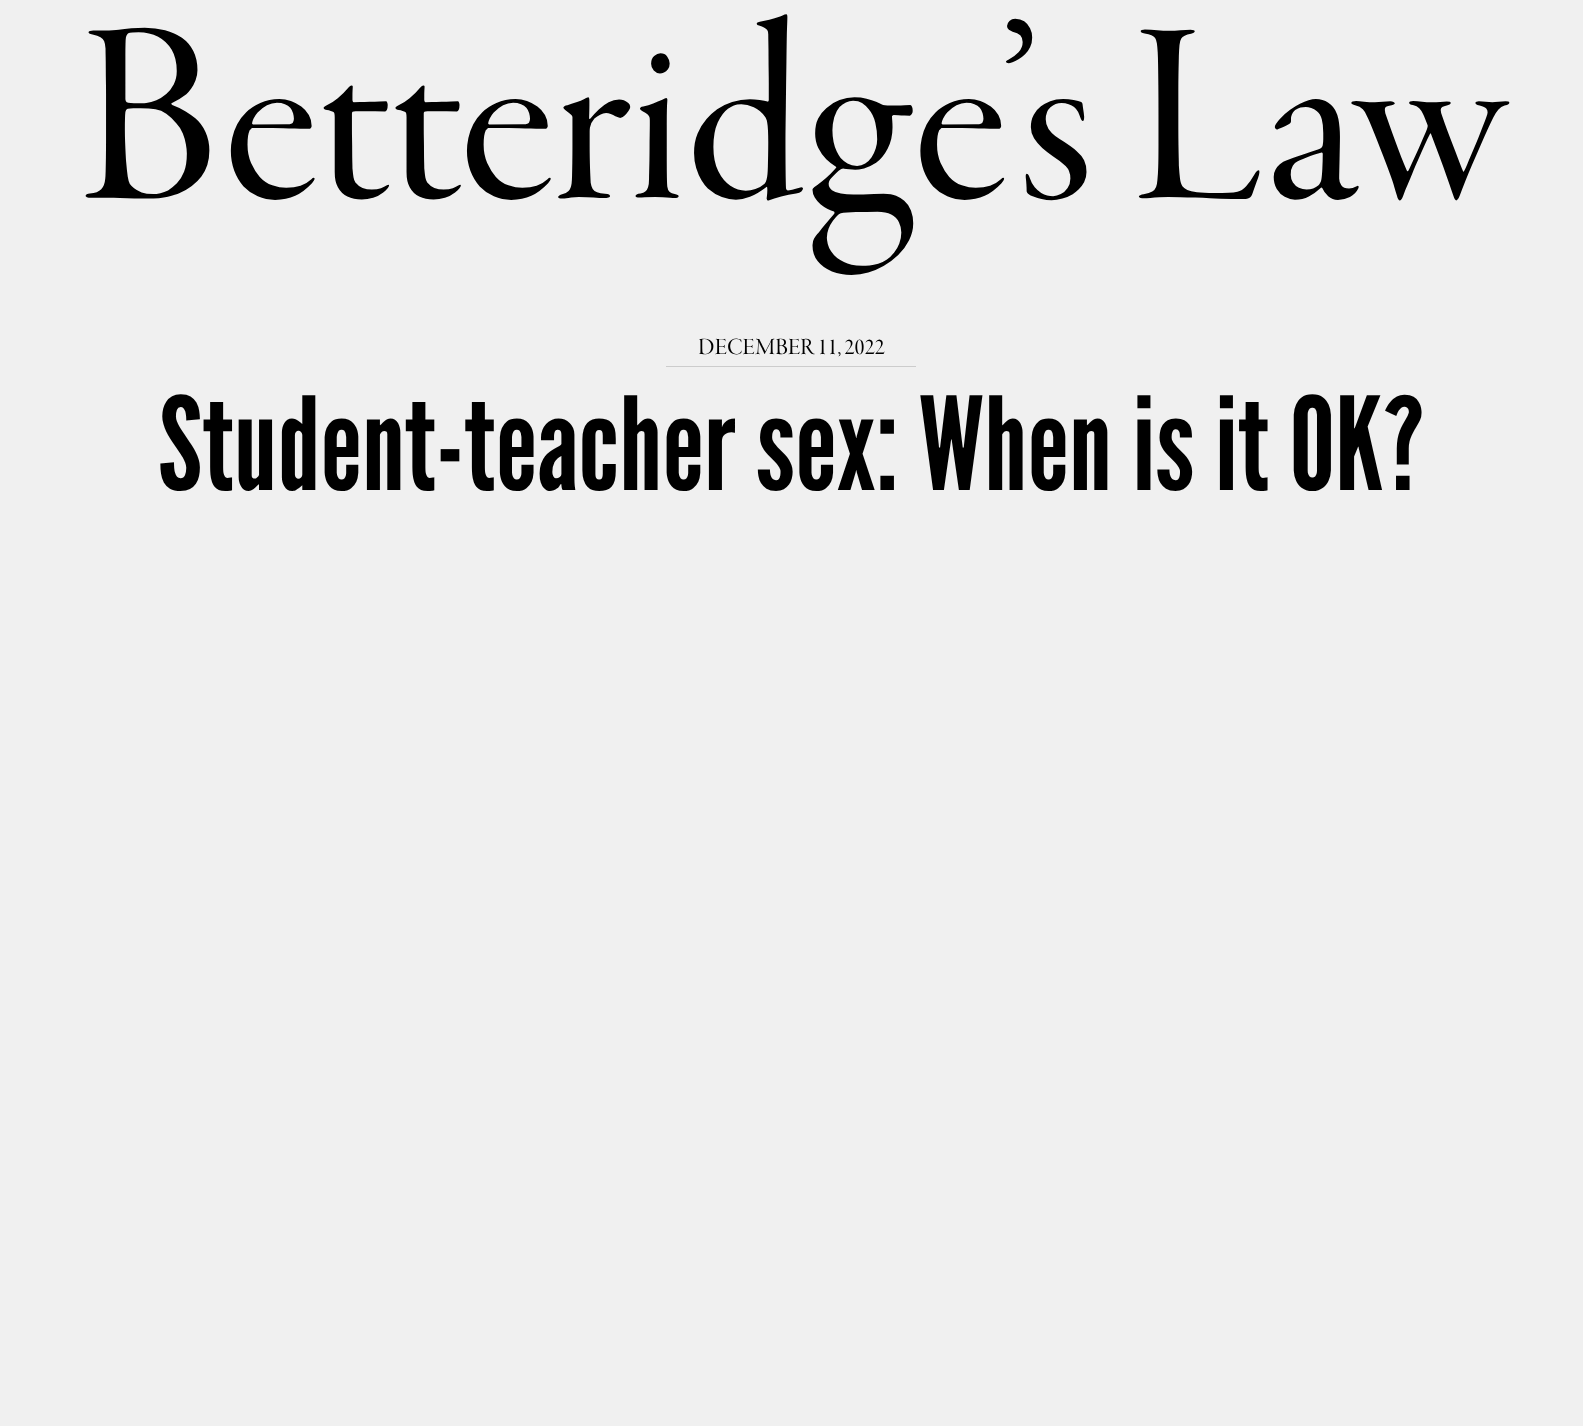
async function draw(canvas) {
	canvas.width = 1583;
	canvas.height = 1426;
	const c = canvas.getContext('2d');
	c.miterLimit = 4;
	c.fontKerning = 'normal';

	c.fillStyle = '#f0f0f0';
	c.fillRect(0, 0, 1583, 1426);
	c.wordSpacing = '-2px';
	c.font = '265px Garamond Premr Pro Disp';
	c.fillStyle = '#000';
	c.fillText('Betteridge’s Law', 79, 197);
	c.fillStyle = '#ccc';
	c.fillRect(666, 366, 250, 1);
	c.wordSpacing = '0px';
	c.font = '24px Garamond Premr Pro Disp';
	c.fillStyle = '#000';
	c.fillText('DECEMBER 11, 2022', 698, 354);
	c.wordSpacing = '0.25px';
	c.font = '129px League Gothic';
	c.fillText('Student-teacher sex: When is it OK?', 158, 490);
}

draw(document.querySelector('canvas'));
